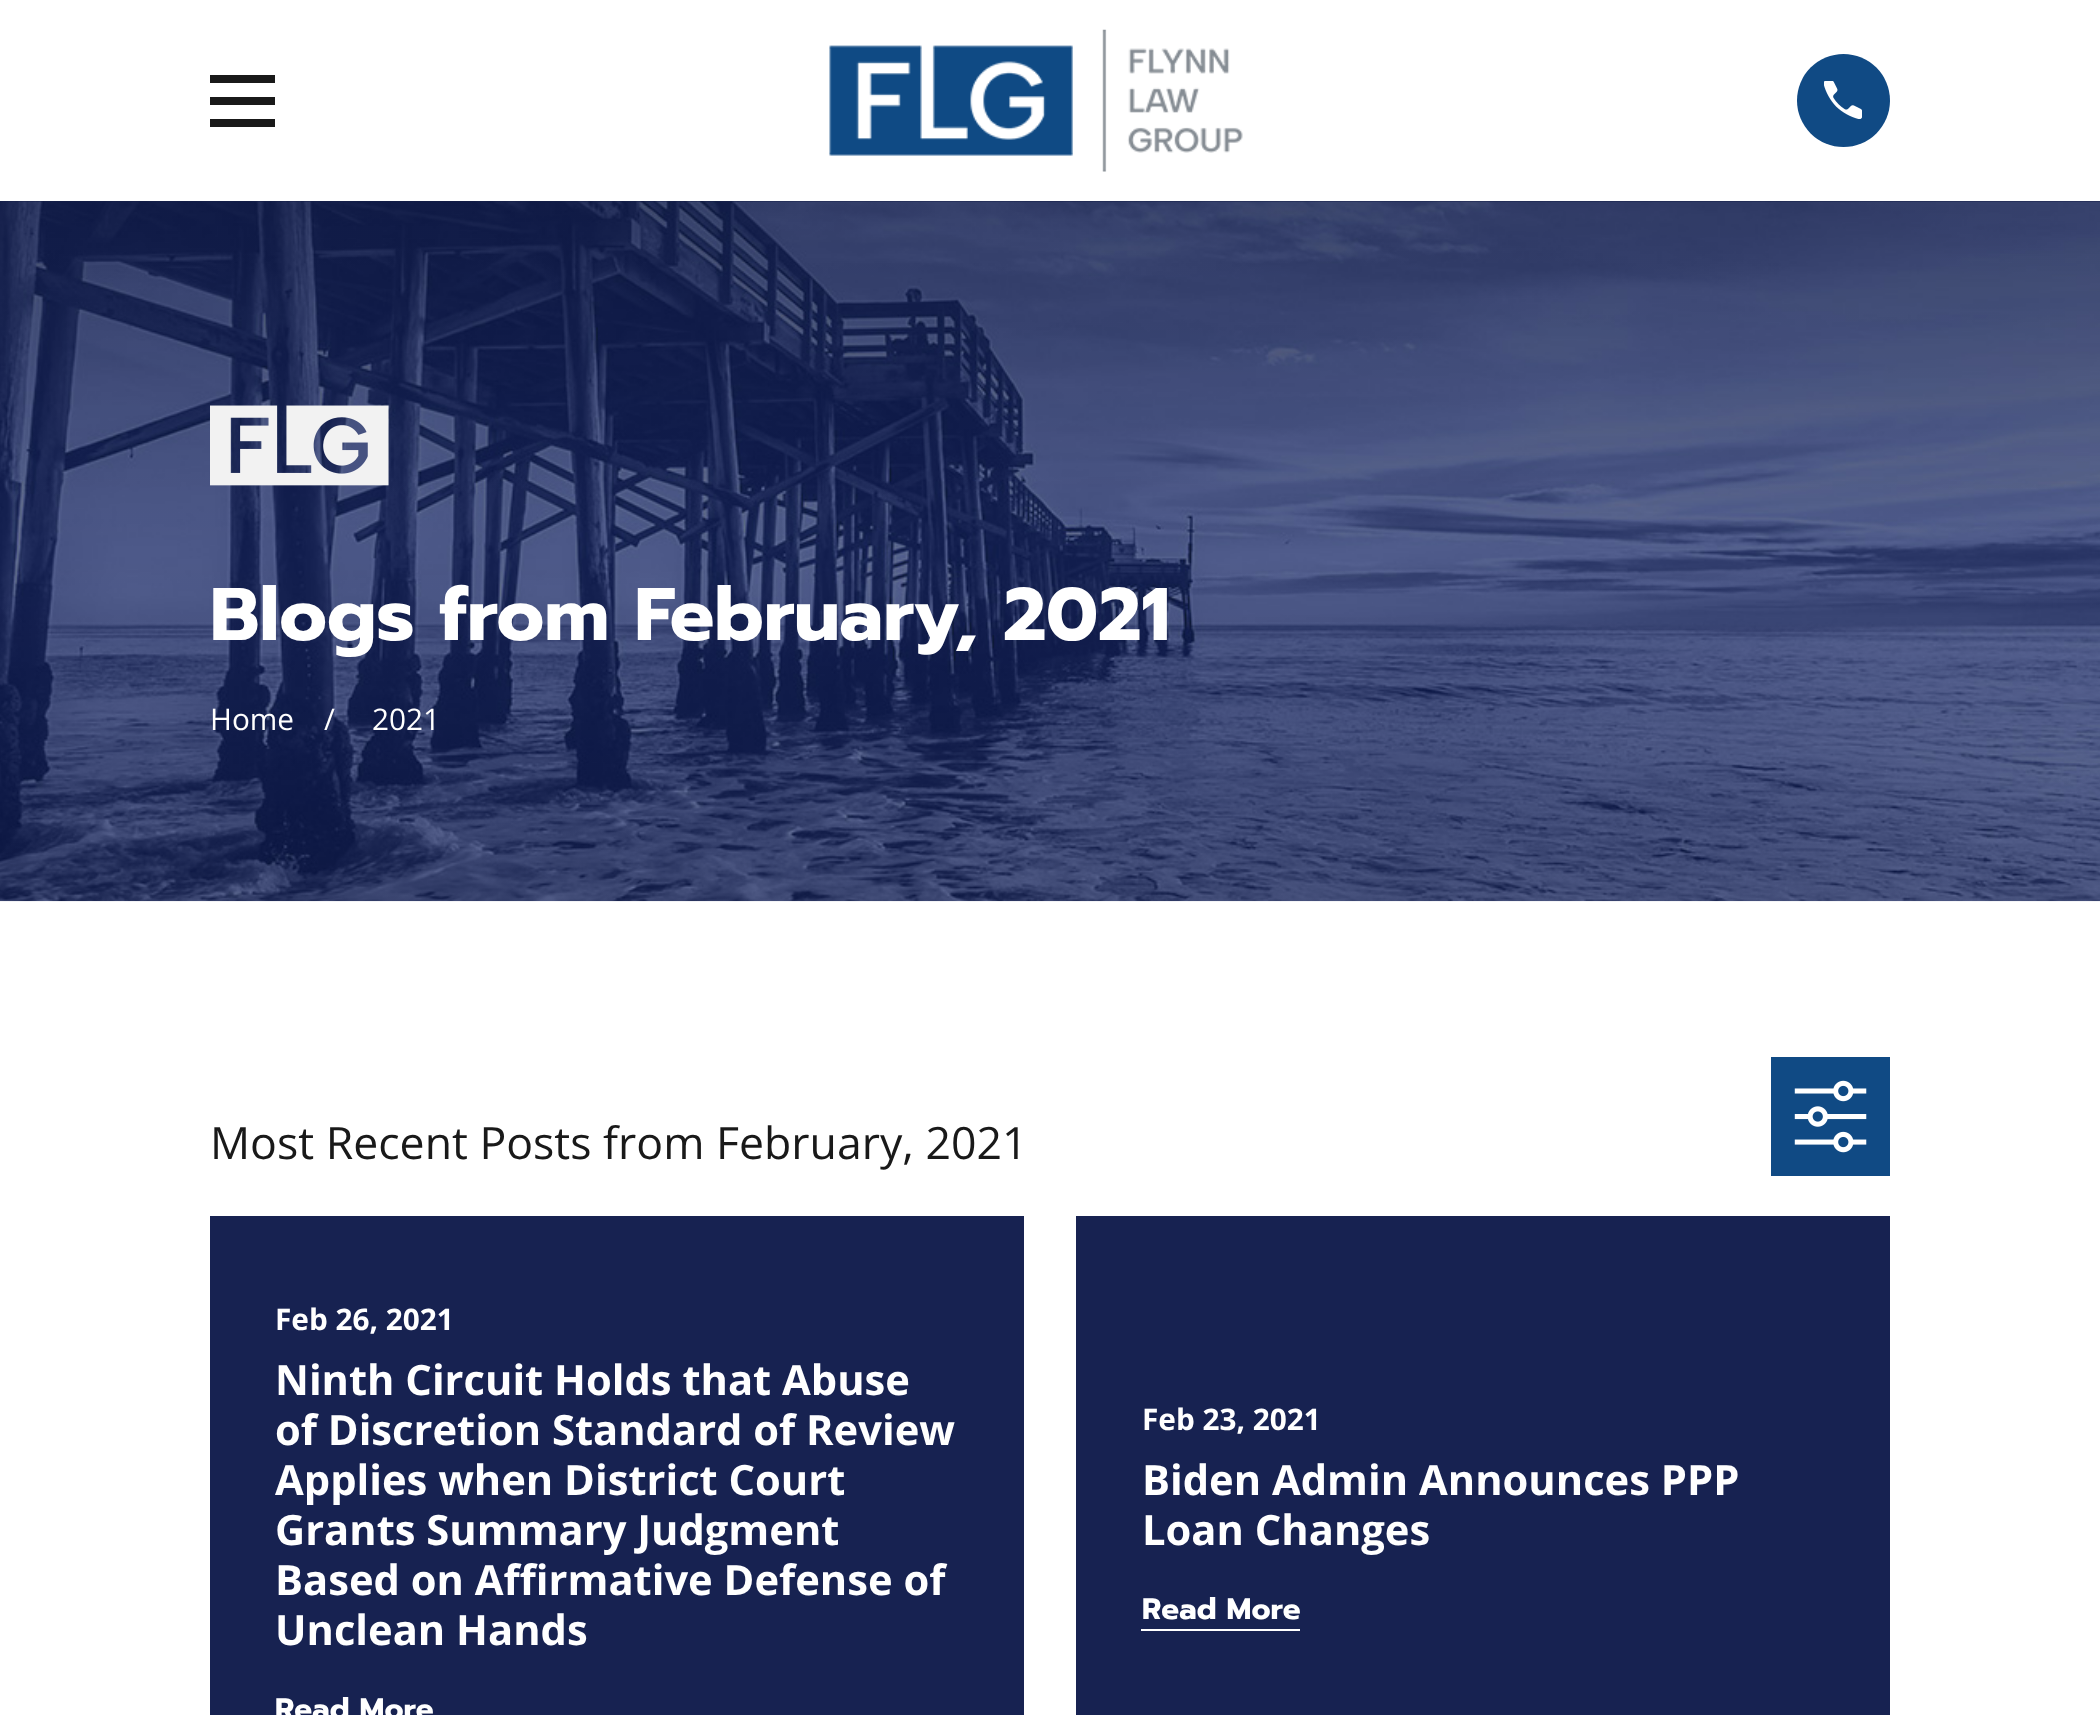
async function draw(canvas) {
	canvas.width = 2100;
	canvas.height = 1715;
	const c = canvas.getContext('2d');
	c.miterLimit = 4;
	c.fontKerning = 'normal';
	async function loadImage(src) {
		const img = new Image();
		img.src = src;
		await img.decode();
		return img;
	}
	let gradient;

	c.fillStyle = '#fff';
	c.fillRect(0, 0, 2100, 1715);
	c.fillStyle = '#191919';
	c.beginPath();
	c.moveTo(210, 75);
	c.lineTo(210, 83);
	c.lineTo(275, 83);
	c.lineTo(275, 75);
	c.closePath();
	c.moveTo(210, 97);
	c.lineTo(210, 105);
	c.lineTo(275, 105);
	c.lineTo(275, 97);
	c.closePath();
	c.moveTo(210, 119);
	c.lineTo(210, 127);
	c.lineTo(275, 127);
	c.lineTo(275, 119);
	c.closePath();
	c.fill();
	c.drawImage(await loadImage('img1.png'), 829, 29, 414, 143);
	c.fillStyle = '#104a84';
	c.beginPath();
	c.arc(1843.5, 100.5, 46.5, 0, 2 * Math.PI);
	c.fill();
	c.drawImage(await loadImage('img2.png'), 1824, 81, 38, 38);
	c.fillStyle = '#172251';
	c.fillRect(0, 201, 2100, 1);
	c.drawImage(await loadImage('img3.png'), 0, 201, 2100, 701);
	gradient = c.createLinearGradient(1050, 901, 1050, 201);
	gradient.addColorStop(0, '#0000001a');
	gradient.addColorStop(0.5, '#00000000');
	gradient.addColorStop(1, '#0000001a');
	c.fillStyle = gradient;
	c.fillRect(0, 201, 2100, 700);
	c.drawImage(await loadImage('img4.png'), 210, 405, 179, 81);
	c.font = 'bold 74.4px Prompt';
	c.fillStyle = '#fff';
	c.fillText('Blogs from February, 2021', 210, 640);
	c.font = '29.75px Open Sans';
	for (const [text, x, y] of [
		['Home', 210, 730],
		['/', 324, 730],
		['2021', 372, 730],
	]) {
		c.fillText(text, x, y);
	}
	c.font = '44.6px Open Sans';
	c.fillStyle = '#191919';
	c.fillText('Most Recent Posts from February, 2021', 210, 1159);
	c.fillStyle = '#104a84';
	c.fillRect(1771, 1057, 119, 119);
	c.drawImage(await loadImage('img5.png'), 1794, 1080, 73, 73);
	c.fillStyle = '#172251';
	c.fillRect(210, 1216, 814, 499);
	c.font = 'bold 29.75px Open Sans';
	c.fillStyle = '#fff';
	c.fillText('Feb 26, 2021', 275, 1330);
	c.font = 'bold 41.7px Open Sans';
	for (const [text, x, y] of [
		['Ninth Circuit Holds that Abuse', 275, 1395],
		['of Discretion Standard of Review', 275, 1445],
		['Applies when District Court', 275, 1495],
		['Grants Summary Judgment', 275, 1545],
		['Based on Affirmative Defense of', 275, 1595],
		['Unclean Hands', 275, 1645],
	]) {
		c.fillText(text, x, y);
	}
	c.font = 'bold 29.75px Prompt';
	c.fillText('Read More', 275, 1719);
	c.fillStyle = '#172251';
	c.fillRect(1076, 1216, 814, 499);
	c.font = 'bold 29.75px Open Sans';
	c.fillStyle = '#fff';
	c.fillText('Feb 23, 2021', 1142, 1430);
	c.font = 'bold 41.7px Open Sans';
	c.fillText('Biden Admin Announces PPP', 1142, 1495);
	c.fillText('Loan Changes', 1142, 1545);
	c.font = 'bold 29.75px Prompt';
	c.fillText('Read More', 1142, 1619);
	c.fillRect(1141, 1629, 159, 2);
}

draw(document.querySelector('canvas'));
